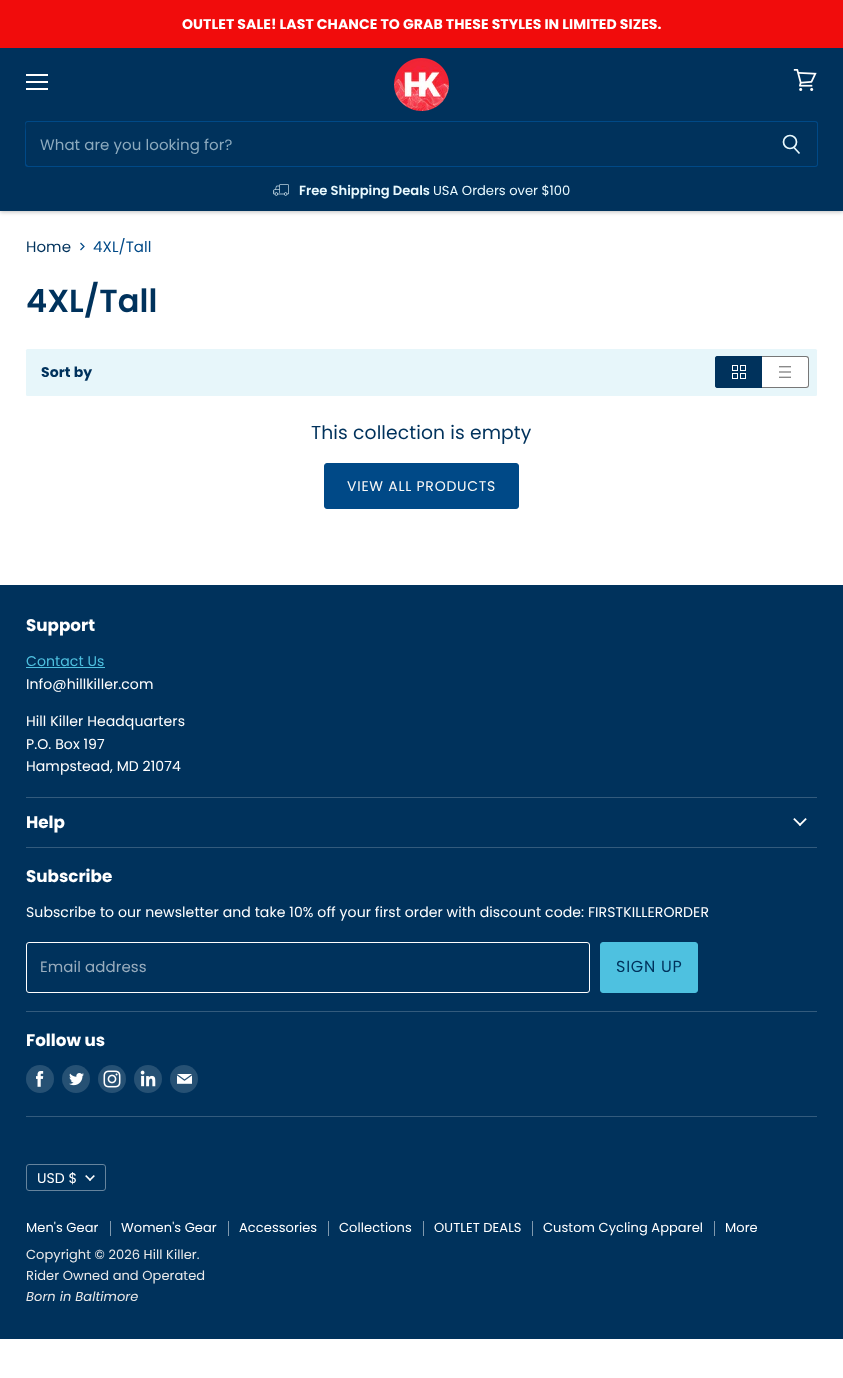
async function draw(canvas) {
	canvas.width = 843;
	canvas.height = 1378;
	const c = canvas.getContext('2d');
	c.miterLimit = 4;
	c.fontKerning = 'normal';
	async function loadImage(src) {
		const img = new Image();
		img.src = src;
		await img.decode();
		return img;
	}

	c.fillStyle = '#fff';
	c.fillRect(0, 0, 843, 1378);
	c.fillStyle = '#00000040';
	c.filter = 'blur(2px)';
	c.beginPath();
	c.rect(0, 49, 843, 163);
	c.fill();
	c.filter = 'none';
	c.fillStyle = '#f10c0c';
	c.fillRect(0, 0, 843, 48);
	c.letterSpacing = '0.07px';
	c.font = 'bold 14.05px Poppins';
	c.fillStyle = '#fff';
	c.fillText('OUTLET SALE! LAST CHANCE TO GRAB THESE STYLES IN LIMITED SIZES.', 182, 29);
	for (const [x, y, w, h, color] of [
		[0, 48, 843, 163, '#00325c'],
		[26, 74, 22, 2, '#fff'],
		[26, 81, 22, 2, '#fff'],
		[26, 88, 22, 2, '#fff'],
	]) {
		c.fillStyle = color;
		c.fillRect(x, y, w, h);
	}
	c.drawImage(await loadImage('img1.png'), 793, 69, 24, 22);
	c.drawImage(await loadImage('img2.png'), 394, 58, 55, 53);
	c.fillStyle = '#004987';
	c.beginPath();
	c.moveTo(28, 121);
	c.lineTo(765, 121);
	c.lineTo(765, 167);
	c.lineTo(28, 167);
	c.bezierCurveTo(26, 167, 25, 166, 25, 164);
	c.lineTo(25, 124);
	c.bezierCurveTo(25, 122, 26, 121, 28, 121);
	c.closePath();
	c.moveTo(28, 122);
	c.lineTo(765, 122);
	c.lineTo(765, 166);
	c.lineTo(28, 166);
	c.lineTo(26, 164);
	c.lineTo(26, 131);
	c.bezierCurveTo(26, 130, 24, 122, 28, 122);
	c.closePath();
	c.fill('evenodd');
	c.font = '15px Poppins';
	c.fillStyle = '#8caabe';
	c.fillText('What are you looking for?', 40, 150);
	c.fillStyle = '#004987';
	c.beginPath();
	c.moveTo(765, 121);
	c.lineTo(815, 121);
	c.bezierCurveTo(817, 121, 818, 122, 818, 124);
	c.lineTo(818, 164);
	c.bezierCurveTo(818, 166, 817, 167, 815, 167);
	c.lineTo(765, 167);
	c.closePath();
	c.moveTo(765, 122);
	c.lineTo(815, 122);
	c.bezierCurveTo(816, 122, 817, 123, 817, 124);
	c.lineTo(817, 164);
	c.bezierCurveTo(817, 165, 816, 166, 815, 166);
	c.lineTo(765, 166);
	c.closePath();
	c.fill('evenodd');
	c.beginPath();
	c.moveTo(799.5, 153.5);
	c.lineTo(794, 147.5);
	c.strokeStyle = '#e9faff';
	c.lineWidth = 1.7;
	c.stroke();
	c.beginPath();
	c.arc(790, 142, 6.5, 0, 2 * Math.PI);
	c.stroke();
	c.drawImage(await loadImage('img3.png'), 273, 184, 16, 12);
	c.letterSpacing = '0px';
	c.font = '600 13.1px Poppins';
	c.fillStyle = '#e9faff';
	c.fillText('Free Shipping Deals', 299, 195);
	c.font = '13.1px Poppins';
	c.fillText('USA Orders over $100', 433, 195);
	c.letterSpacing = '0.07px';
	c.font = '15px Poppins';
	c.fillStyle = '#00325c';
	c.fillText('Home', 26, 252);
	c.beginPath();
	c.moveTo(80.5, 250);
	c.lineTo(84, 246.5);
	c.lineTo(80.5, 243);
	c.strokeStyle = '#004987';
	c.lineWidth = 1.2;
	c.stroke();
	c.fillStyle = '#004987';
	c.fillText('4XL/Tall', 93, 252);
	c.letterSpacing = '0px';
	c.font = '600 32px Poppins';
	c.fillStyle = '#00325c';
	c.fillText('4XL/Tall', 26, 312);
	c.fillStyle = '#e7f6fa';
	c.beginPath();
	c.roundRect(26, 349, 791, 47, 1.5);
	c.fill();
	c.letterSpacing = '0.07px';
	c.font = 'bold 14.05px Poppins';
	c.fillStyle = '#00325c';
	c.fillText('Sort by', 41, 377);
	c.beginPath();
	c.roundRect(715, 356, 47, 32, [3, 0, 0, 3]);
	c.fill();
	c.beginPath();
	c.moveTo(718, 356);
	c.lineTo(762, 356);
	c.lineTo(762, 388);
	c.lineTo(718, 388);
	c.bezierCurveTo(716, 388, 715, 387, 715, 385);
	c.lineTo(715, 359);
	c.bezierCurveTo(715, 357, 716, 356, 718, 356);
	c.closePath();
	c.moveTo(718, 357);
	c.lineTo(762, 357);
	c.lineTo(762, 387);
	c.lineTo(718, 387);
	c.bezierCurveTo(717, 387, 716, 386, 716, 385);
	c.lineTo(716, 359);
	c.bezierCurveTo(716, 358, 717, 357, 718, 357);
	c.closePath();
	c.fill('evenodd');
	c.drawImage(await loadImage('img4.png'), 732, 365, 14, 14);
	c.fillStyle = '#fff';
	c.beginPath();
	c.roundRect(762, 356, 47, 32, [0, 3, 3, 0]);
	c.fill();
	c.fillStyle = '#777';
	c.beginPath();
	c.moveTo(762, 356);
	c.lineTo(806, 356);
	c.bezierCurveTo(808, 356, 809, 357, 809, 359);
	c.lineTo(809, 385);
	c.bezierCurveTo(809, 387, 808, 388, 806, 388);
	c.lineTo(762, 388);
	c.closePath();
	c.moveTo(762, 357);
	c.lineTo(806, 357);
	c.bezierCurveTo(807, 357, 808, 358, 808, 359);
	c.lineTo(808, 385);
	c.bezierCurveTo(808, 386, 807, 387, 806, 387);
	c.lineTo(762, 387);
	c.closePath();
	c.fill('evenodd');
	c.drawImage(await loadImage('img5.png'), 779, 366, 12, 12);
	c.letterSpacing = '0.1px';
	c.font = '18.75px Poppins';
	c.fillStyle = '#00325c';
	c.fillText('This collection is empty', 311, 439);
	c.fillStyle = '#004987';
	c.beginPath();
	c.roundRect(324.5, 463.5, 194, 45, 2.5);
	c.fill();
	c.lineWidth = 1;
	c.stroke();
	c.letterSpacing = '0.75px';
	c.font = '14px Poppins';
	c.fillStyle = '#faf9f7';
	c.fillText('VIEW ALL PRODUCTS', 347, 491);
	c.fillStyle = '#00325c';
	c.fillRect(0, 585, 843, 754);
	c.fillStyle = '#335b7d';
	c.fillRect(26, 797, 791, 1);
	c.letterSpacing = '0px';
	c.font = 'bold 16.75px Poppins';
	c.fillStyle = '#fff';
	c.fillText('Support', 26, 631);
	c.letterSpacing = '0.07px';
	c.font = '14.05px Poppins';
	c.fillStyle = '#4ec1e0';
	c.fillText('Contact Us', 26, 666);
	c.fillRect(26, 667, 79, 1);
	c.fillStyle = '#fff';
	for (const [text, x, y] of [
		['Info@hillkiller.com', 26, 689],
		['Hill Killer Headquarters', 26, 726],
		['P.O. Box 197', 26, 749],
		['Hampstead, MD 21074', 26, 771],
	]) {
		c.fillText(text, x, y);
	}
	c.fillStyle = '#335b7d';
	c.fillRect(26, 847, 791, 1);
	c.letterSpacing = '0px';
	c.font = 'bold 16.75px Poppins';
	c.fillStyle = '#fff';
	c.fillText('Help', 26, 828);
	c.drawImage(await loadImage('img6.png'), 793, 818, 14, 8);
	c.fillStyle = '#335b7d';
	c.fillRect(26, 1011, 791, 1);
	c.fillStyle = '#fff';
	c.fillText('Subscribe', 26, 882);
	c.letterSpacing = '0.07px';
	c.font = '14.05px Poppins';
	c.fillText('Subscribe to our newsletter and take 10% off your first order with discount code: FIRSTKILLERORDER', 26, 917);
	c.beginPath();
	c.roundRect(26.5, 942.5, 563, 50, 2.5);
	c.strokeStyle = '#fff';
	c.stroke();
	c.font = '15px Poppins';
	c.fillStyle = '#99adbe';
	c.fillText('Email address', 40, 972);
	c.fillStyle = '#4ec1e0';
	c.beginPath();
	c.roundRect(600.5, 942.5, 97, 50, 2.5);
	c.fill();
	c.strokeStyle = '#4ec1e0';
	c.stroke();
	c.letterSpacing = '0.75px';
	c.font = '16px Poppins';
	c.fillStyle = '#00325c';
	c.fillText('SIGN UP', 616, 972);
	c.fillStyle = '#335b7d';
	c.fillRect(26, 1116, 791, 1);
	c.letterSpacing = '0px';
	c.font = 'bold 16.75px Poppins';
	c.fillStyle = '#fff';
	c.fillText('Follow us', 26, 1046);
	c.fillStyle = '#265174';
	c.beginPath();
	c.arc(40, 1079, 14, 0, 2 * Math.PI);
	c.fill();
	c.drawImage(await loadImage('img7.png'), 36, 1071, 8, 16);
	c.beginPath();
	c.arc(76, 1079, 14, 0, 2 * Math.PI);
	c.fill();
	c.drawImage(await loadImage('img8.png'), 69, 1073, 15, 13);
	c.beginPath();
	c.arc(112, 1079, 14, 0, 2 * Math.PI);
	c.fill();
	c.drawImage(await loadImage('img9.png'), 103, 1070, 18, 18);
	c.beginPath();
	c.arc(148, 1079, 14, 0, 2 * Math.PI);
	c.fill();
	c.drawImage(await loadImage('img10.png'), 140, 1070, 16, 17);
	c.beginPath();
	c.arc(184, 1079, 14, 0, 2 * Math.PI);
	c.fill();
	c.drawImage(await loadImage('img11.png'), 177, 1074, 15, 10);
	c.beginPath();
	c.roundRect(26.5, 1164.5, 79, 26, 2.5);
	c.strokeStyle = '#66849d';
	c.stroke();
	c.font = '14.05px Poppins';
	c.fillStyle = '#fff';
	c.fillText('USD $', 37, 1183);
	c.drawImage(await loadImage('img12.png'), 85, 1175, 10, 6);
	c.fillStyle = '#8099ae';
	c.fillRect(110, 1221, 1, 15);
	c.letterSpacing = '0.07px';
	c.font = '13px Poppins';
	c.fillStyle = '#fff';
	c.fillText('Men\'s Gear', 26, 1232);
	c.fillStyle = '#8099ae';
	c.fillRect(228, 1221, 1, 15);
	c.fillStyle = '#fff';
	c.fillText('Women\'s Gear', 121, 1232);
	c.fillStyle = '#8099ae';
	c.fillRect(328, 1221, 1, 15);
	c.fillStyle = '#fff';
	c.fillText('Accessories', 239, 1232);
	c.fillStyle = '#8099ae';
	c.fillRect(423, 1221, 1, 15);
	c.fillStyle = '#fff';
	c.fillText('Collections', 339, 1232);
	c.fillStyle = '#8099ae';
	c.fillRect(532, 1221, 1, 15);
	c.fillStyle = '#fff';
	c.fillText('OUTLET DEALS', 434, 1232);
	c.fillStyle = '#8099ae';
	c.fillRect(714, 1221, 1, 15);
	c.fillStyle = '#fff';
	c.fillText('Custom Cycling Apparel', 543, 1232);
	c.fillText('More', 725, 1232);
	c.fillStyle = '#eaeaea';
	c.fillText('Copyright © 2026 Hill Killer.', 26, 1259);
	c.fillText('Rider Owned and Operated', 26, 1280);
	c.font = 'italic 13px Poppins';
	c.fillText('Born in Baltimore', 26, 1301);
}

draw(document.querySelector('canvas'));
